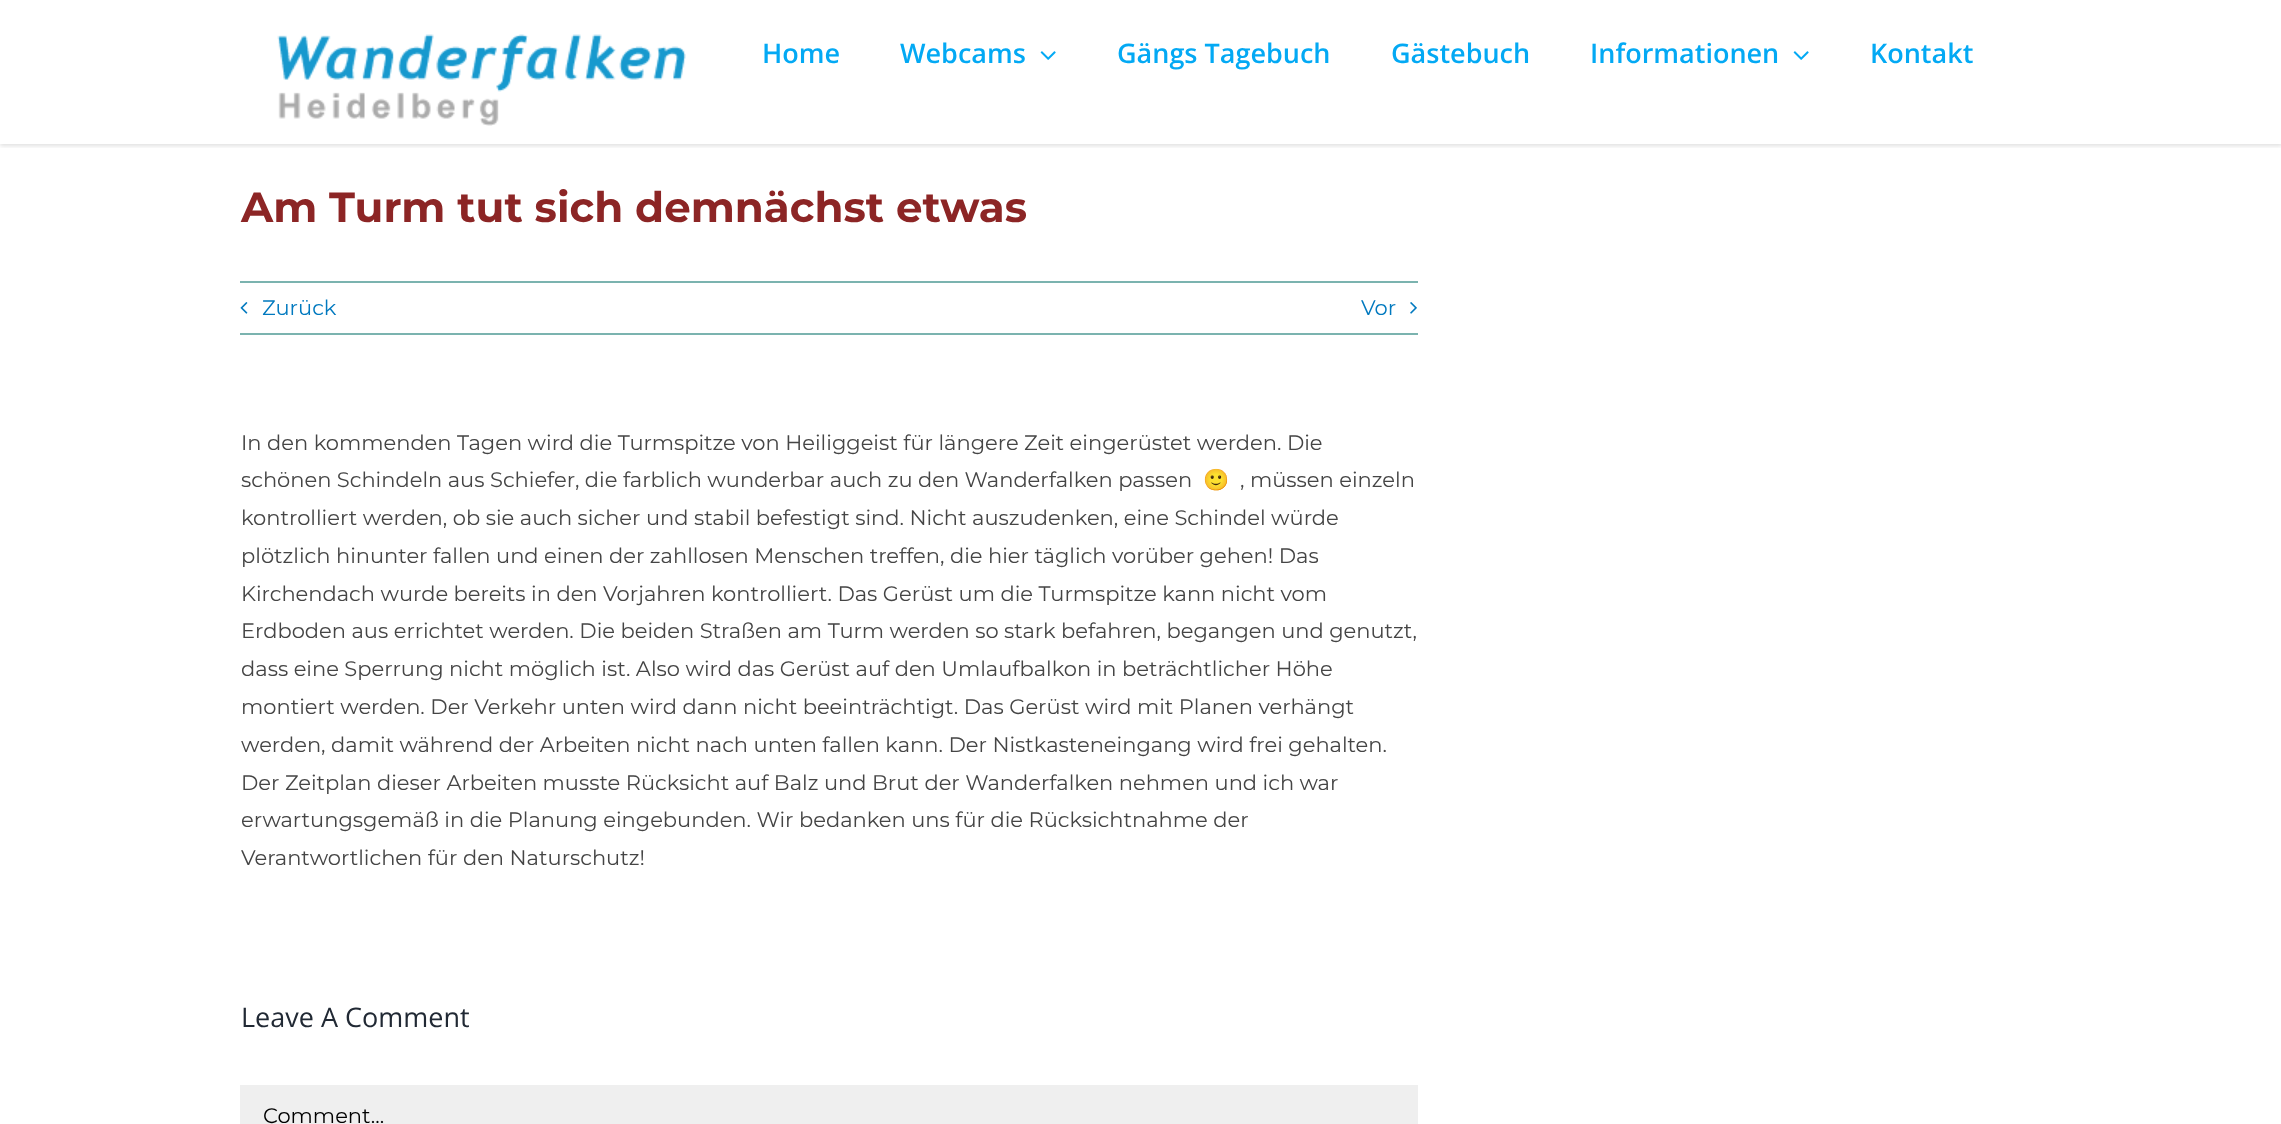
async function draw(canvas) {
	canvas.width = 2281;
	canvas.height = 1124;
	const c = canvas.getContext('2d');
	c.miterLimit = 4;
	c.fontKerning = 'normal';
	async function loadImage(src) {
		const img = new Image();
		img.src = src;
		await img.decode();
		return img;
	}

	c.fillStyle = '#fff';
	c.fillRect(0, 0, 2281, 1124);
	c.save();
	c.beginPath();
	c.rect(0, 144, 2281, 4);
	c.clip();
	c.fillStyle = '#0000001f';
	c.filter = 'blur(2px)';
	c.beginPath();
	c.rect(0, 2, 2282, 144);
	c.fill();
	c.filter = 'none';
	c.restore();
	c.drawImage(await loadImage('img1.png'), 277, 34, 409, 92);
	c.font = '600 27px Open Sans';
	c.fillStyle = '#03a9f4';
	c.fillText('Home', 762, 63);
	c.fillText('Webcams', 900, 63);
	c.drawImage(await loadImage('img2.png'), 1040, 51, 16, 9);
	for (const [text, x, y] of [
		['Gängs Tagebuch', 1117, 63],
		['Gästebuch', 1391, 63],
		['Informationen', 1590, 63],
	]) {
		c.fillText(text, x, y);
	}
	c.drawImage(await loadImage('img2.png'), 1793, 51, 16, 9);
	c.fillText('Kontakt', 1870, 63);
	c.font = 'bold 42px Montserrat';
	c.fillStyle = '#8c2525';
	c.fillText('Am Turm tut sich demnächst etwas', 241, 222);
	c.fillStyle = '#7bb3af';
	c.fillRect(240, 281, 1178, 2);
	c.fillRect(240, 333, 1178, 2);
	c.drawImage(await loadImage('img3.png'), 240, 302, 8, 12);
	c.font = '21px Montserrat';
	c.fillStyle = '#0179bf';
	c.fillText('Zurück', 262, 315);
	c.fillText('Vor', 1361, 315);
	c.drawImage(await loadImage('img4.png'), 1410, 302, 7, 12);
	c.fillStyle = '#454545';
	c.fillText('In den kommenden Tagen wird die Turmspitze von Heiliggeist für längere Zeit eingerüstet werden. Die', 241, 450);
	c.fillText('schönen Schindeln aus Schiefer, die farblich wunderbar auch zu den Wanderfalken passen', 241, 487);
	c.font = '21px Noto Color Emoji';
	c.fillText('🙂', 1203, 487);
	c.font = '21px Montserrat';
	for (const [text, x, y] of [
		[', müssen einzeln', 1240, 487],
		['kontrolliert werden, ob sie auch sicher und stabil befestigt sind. Nicht auszudenken, eine Schindel würde', 241, 525],
		['plötzlich hinunter fallen und einen der zahllosen Menschen treffen, die hier täglich vorüber gehen! Das', 241, 563],
		['Kirchendach wurde bereits in den Vorjahren kontrolliert. Das Gerüst um die Turmspitze kann nicht vom', 241, 601],
		['Erdboden aus errichtet werden. Die beiden Straßen am Turm werden so stark befahren, begangen und genutzt,', 241, 638],
		['dass eine Sperrung nicht möglich ist. Also wird das Gerüst auf den Umlaufbalkon in beträchtlicher Höhe', 241, 676],
		['montiert werden. Der Verkehr unten wird dann nicht beeinträchtigt. Das Gerüst wird mit Planen verhängt', 241, 714],
		['werden, damit während der Arbeiten nicht nach unten fallen kann. Der Nistkasteneingang wird frei gehalten.', 241, 752],
		['Der Zeitplan dieser Arbeiten musste Rücksicht auf Balz und Brut der Wanderfalken nehmen und ich war', 241, 790],
		['erwartungsgemäß in die Planung eingebunden. Wir bedanken uns für die Rücksichtnahme der', 241, 827],
		['Verantwortlichen für den Naturschutz!', 241, 865],
	]) {
		c.fillText(text, x, y);
	}
	c.font = '27px Open Sans';
	c.fillStyle = '#212934';
	c.fillText('Leave A Comment', 241, 1027);
	c.fillStyle = '#efefef';
	c.fillRect(240, 1085, 1178, 39);
	c.font = '21px Montserrat';
	c.fillStyle = '#000';
	c.fillText('Comment...', 263, 1123);
}

draw(document.querySelector('canvas'));
